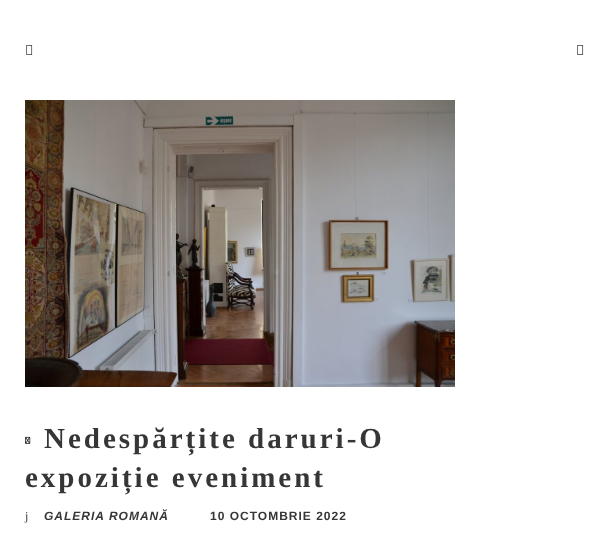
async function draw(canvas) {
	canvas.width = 611;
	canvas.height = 537;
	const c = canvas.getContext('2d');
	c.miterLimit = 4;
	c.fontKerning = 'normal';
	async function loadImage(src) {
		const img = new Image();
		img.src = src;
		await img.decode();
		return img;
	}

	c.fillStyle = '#fff';
	c.fillRect(0, 0, 611, 537);
	c.drawImage(await loadImage('img1.png'), 26, 45, 7, 10);
	c.drawImage(await loadImage('img1.png'), 577, 45, 7, 10);
	c.drawImage(await loadImage('img2.png'), 25, 100, 430, 287);
	c.drawImage(await loadImage('img3.png'), 25, 436, 6, 8);
	c.letterSpacing = '3px';
	c.font = 'bold 29px Liberation Serif';
	c.fillStyle = '#363636';
	c.fillText('Nedespărțite daruri-O', 44, 448);
	c.fillText('expoziție eveniment', 25, 487);
	c.letterSpacing = '1px';
	c.font = '12px Liberation Serif';
	c.fillText('j', 25, 520);
	c.font = 'italic bold 12px Liberation Sans';
	c.fillText('GALERIA ROMANĂ', 44, 520);
	c.font = 'bold 12px Liberation Sans';
	c.fillText('10 OCTOMBRIE 2022', 210, 520);
}

draw(document.querySelector('canvas'));
